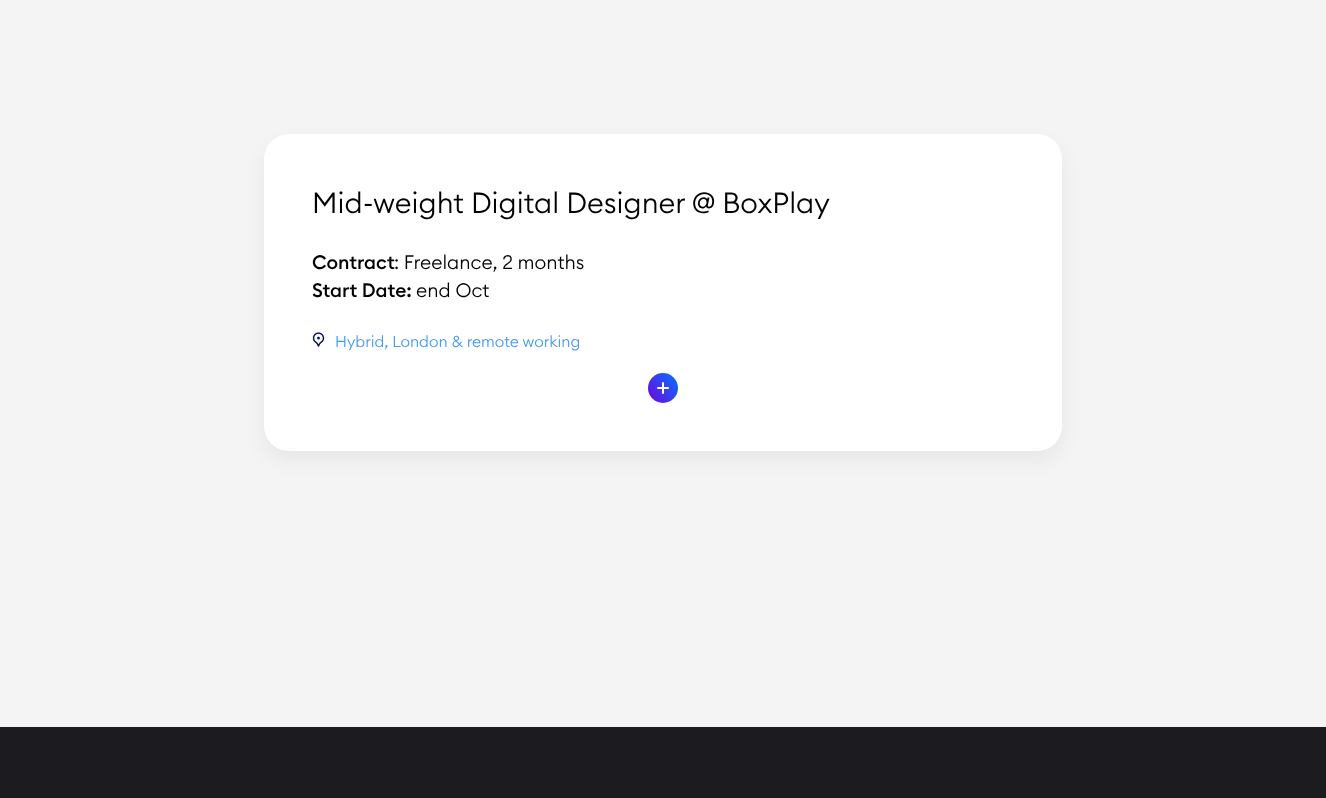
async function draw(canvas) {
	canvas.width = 1326;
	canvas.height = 798;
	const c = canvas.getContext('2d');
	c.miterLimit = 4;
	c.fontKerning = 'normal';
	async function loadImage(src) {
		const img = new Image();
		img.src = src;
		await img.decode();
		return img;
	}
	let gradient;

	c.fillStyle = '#f4f4f4';
	c.fillRect(0, 0, 1326, 798);
	c.fillStyle = '#0000000d';
	c.filter = 'blur(10px)';
	c.beginPath();
	c.roundRect(264, 144, 798, 317, 25);
	c.fill();
	c.filter = 'none';
	c.fillStyle = '#fff';
	c.beginPath();
	c.roundRect(264, 134, 798, 317, 25);
	c.fill();
	c.font = '300 28.75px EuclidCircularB';
	c.fillStyle = '#000';
	c.fillText('Mid-weight Digital Designer @ BoxPlay', 312, 213);
	c.font = '500 19.25px EuclidCircularB';
	c.fillText('Contract', 312, 269);
	c.font = '300 19.25px EuclidCircularB';
	c.fillText(': Freelance, 2 months', 394, 269);
	c.font = '500 19.25px EuclidCircularB';
	c.fillText('Start Date:', 312, 297);
	c.font = '300 19.25px EuclidCircularB';
	c.fillText('end Oct', 416, 297);
	c.drawImage(await loadImage('img1.png'), 312, 332, 13, 15);
	c.font = '300 15.6px EuclidCircularB';
	c.fillStyle = '#439af7';
	c.fillText('Hybrid, London & remote working', 335, 347);
	gradient = c.createLinearGradient(646, 401, 680, 375);
	gradient.addColorStop(0, '#7300de');
	gradient.addColorStop(1, '#07f');
	c.fillStyle = gradient;
	c.beginPath();
	c.arc(663, 388, 15, 0, 2 * Math.PI);
	c.fill();
	c.fillStyle = '#fff';
	c.beginPath();
	c.roundRect(657, 387, 12, 2, 1);
	c.fill();
	c.beginPath();
	c.roundRect(662, 382, 2, 12, 1);
	c.fill();
	c.fillStyle = '#1c1b20';
	c.fillRect(0, 727, 1326, 71);
}

draw(document.querySelector('canvas'));
